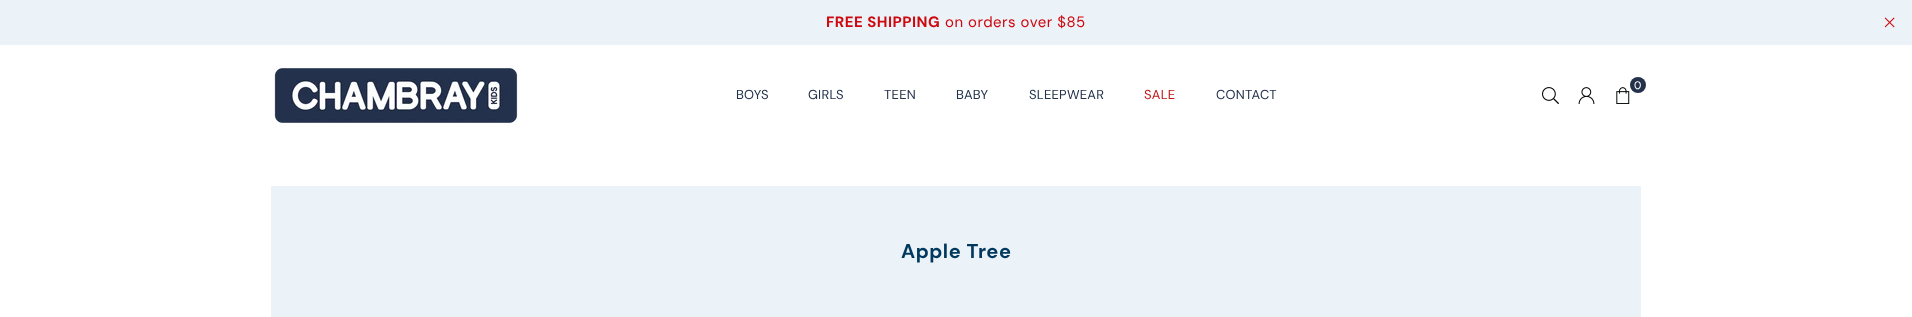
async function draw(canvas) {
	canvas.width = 1912;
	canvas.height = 317;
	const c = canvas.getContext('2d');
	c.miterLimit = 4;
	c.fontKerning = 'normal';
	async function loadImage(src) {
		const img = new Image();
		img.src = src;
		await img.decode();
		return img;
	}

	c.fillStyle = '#fff';
	c.fillRect(0, 0, 1912, 317);
	c.fillStyle = '#ebf2f8';
	c.fillRect(0, 0, 1912, 45);
	c.letterSpacing = '0.5px';
	c.font = 'bold 15px DM Sans';
	c.fillStyle = '#cd080e';
	c.fillText('FREE SHIPPING', 826, 27);
	c.font = '15px DM Sans';
	c.fillText('on orders over $85', 945, 27);
	c.drawImage(await loadImage('img1.png'), 1884, 17, 11, 11);
	c.drawImage(await loadImage('img2.png'), 274, 68, 244, 55);
	c.fillStyle = '#23314b';
	c.beginPath();
	c.arc(1638, 85, 8, 0, 2 * Math.PI);
	c.fill();
	c.letterSpacing = '0.25px';
	c.font = '11px "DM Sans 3"';
	c.fillStyle = '#fff';
	c.fillText('0', 1634, 89);
	c.drawImage(await loadImage('img3.png'), 1616, 87, 14, 17);
	c.drawImage(await loadImage('img4.png'), 1542, 87, 17, 17);
	c.drawImage(await loadImage('img5.png'), 1578, 87, 17, 17);
	c.font = '13px "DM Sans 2"';
	c.fillStyle = '#23314b';
	for (const [text, x, y] of [
		['BOYS', 736, 99],
		['GIRLS', 808, 99],
		['TEEN', 884, 99],
		['BABY', 956, 99],
		['SLEEPWEAR', 1029, 99],
	]) {
		c.fillText(text, x, y);
	}
	c.fillStyle = '#bf1616';
	c.fillText('SALE', 1144, 99);
	c.fillStyle = '#23314b';
	c.fillText('CONTACT', 1216, 99);
	c.fillStyle = '#ebf2f8';
	c.fillRect(271, 186, 1370, 131);
	c.letterSpacing = '0.5px';
	c.font = 'bold 20px "DM Sans 2"';
	c.fillStyle = '#01385e';
	c.fillText('Apple Tree', 901, 258);
}

draw(document.querySelector('canvas'));
